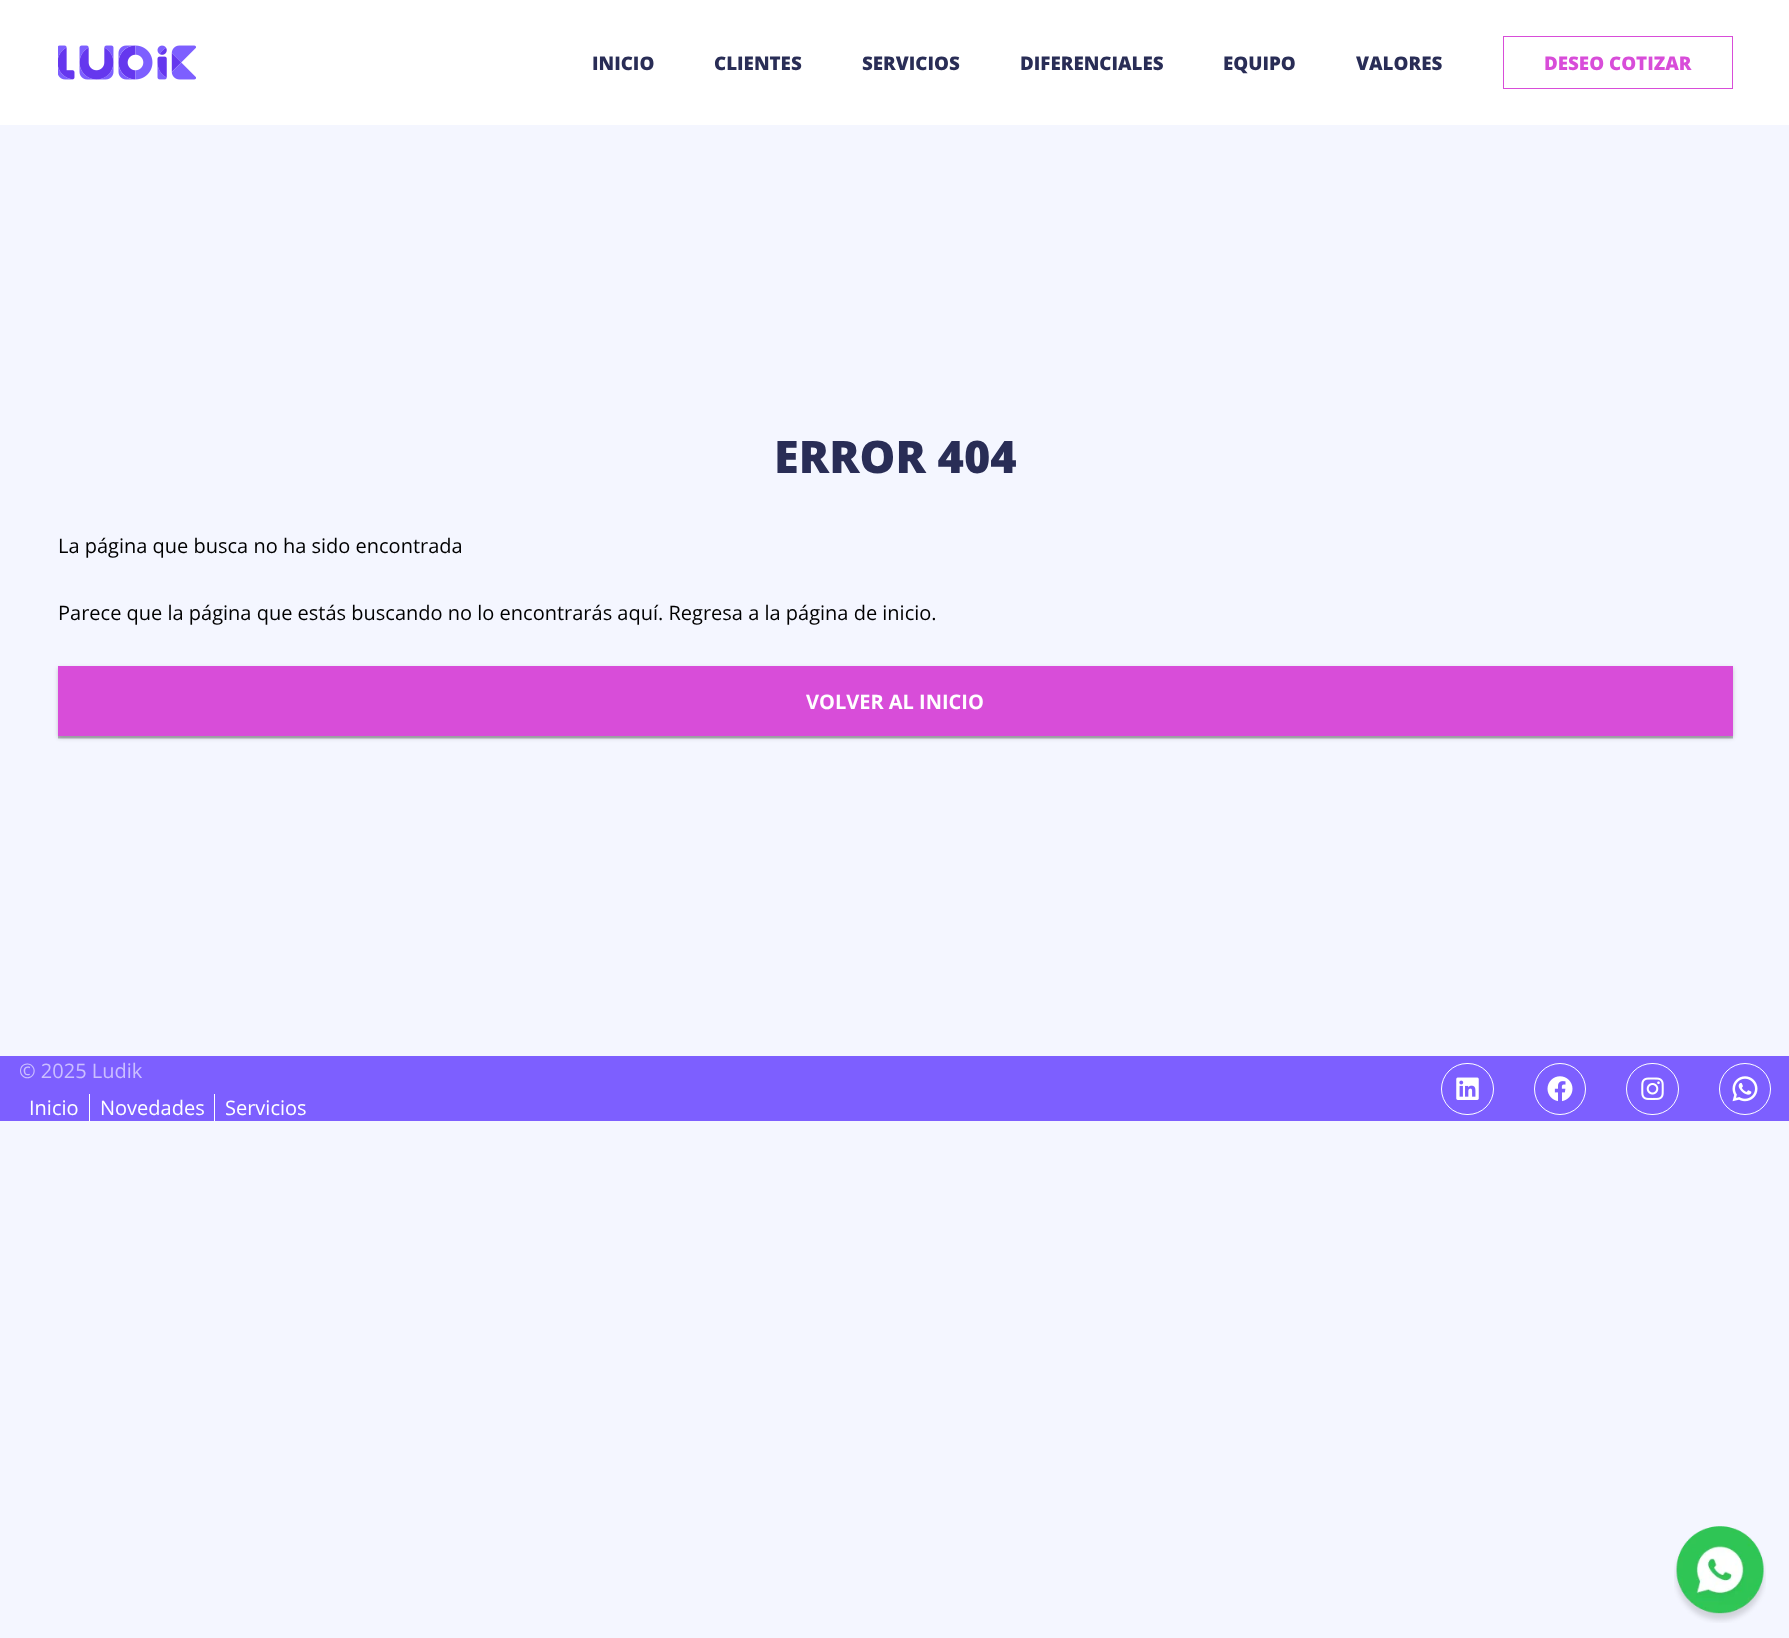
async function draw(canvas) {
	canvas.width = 1789;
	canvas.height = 1638;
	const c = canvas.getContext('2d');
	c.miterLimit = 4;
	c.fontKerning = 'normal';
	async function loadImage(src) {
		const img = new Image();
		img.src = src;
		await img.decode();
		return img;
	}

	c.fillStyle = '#f4f6ff';
	c.fillRect(0, 0, 1789, 1638);
	c.fillStyle = '#fff';
	c.fillRect(0, 0, 1789, 125);
	c.drawImage(await loadImage('img1.png'), 58, 45, 138, 35);
	c.font = '800 18.75px Open Sans';
	c.fillStyle = '#292d56';
	for (const [text, x, y] of [
		['INICIO', 592, 70],
		['CLIENTES', 714, 70],
		['SERVICIOS', 862, 70],
		['DIFERENCIALES', 1020, 70],
		['EQUIPO', 1223, 70],
		['VALORES', 1356, 70],
	]) {
		c.fillText(text, x, y);
	}
	c.strokeStyle = '#d84dd9';
	c.strokeRect(1503.5, 36.5, 229, 52);
	c.fillStyle = '#d84dd9';
	c.fillText('DESEO COTIZAR', 1544, 70);
	c.font = '800 45px Open Sans';
	c.fillStyle = '#292d56';
	c.fillText('ERROR 404', 774, 473);
	c.font = '20px Open Sans';
	c.fillStyle = '#000';
	c.fillText('La página que busca no ha sido encontrada', 58, 553);
	c.fillText('Parece que la página que estás buscando no lo encontrarás aquí. Regresa a la página de inicio.', 58, 620);
	c.fillStyle = '#00000024';
	c.filter = 'blur(0.5px)';
	c.beginPath();
	c.rect(58, 668, 1675, 70);
	c.fill();
	c.filter = 'none';
	c.fillStyle = '#0000001f';
	c.filter = 'blur(0.5px)';
	c.beginPath();
	c.rect(58, 669, 1675, 70);
	c.fill();
	c.filter = 'none';
	c.fillStyle = '#00000033';
	c.filter = 'blur(2px)';
	c.beginPath();
	c.rect(58, 668, 1675, 70);
	c.fill();
	c.filter = 'none';
	c.fillStyle = '#d84dd9';
	c.fillRect(58, 666, 1675, 70);
	c.font = 'bold 20px Open Sans';
	c.fillStyle = '#fff';
	c.fillText('VOLVER AL INICIO', 806, 709);
	c.fillStyle = '#7d5fff';
	c.fillRect(0, 1056, 1789, 65);
	c.font = '20px Open Sans';
	c.fillStyle = '#cbbfff';
	c.fillText('© 2025 Ludik', 19, 1078);
	c.fillStyle = '#fff';
	c.fillText('Inicio', 29, 1115);
	c.fillRect(214, 1094, 1, 27);
	c.fillRect(89, 1094, 1, 27);
	c.fillText('Novedades', 100, 1115);
	c.fillText('Servicios', 225, 1115);
	c.beginPath();
	c.roundRect(1441.5, 1063.5, 52, 51, 25.5);
	c.strokeStyle = '#fff';
	c.stroke();
	c.drawImage(await loadImage('img2.png'), 1456, 1077, 23, 23);
	c.beginPath();
	c.arc(1560, 1089, 25.5, 0, 2 * Math.PI);
	c.stroke();
	c.drawImage(await loadImage('img3.png'), 1547, 1076, 26, 26);
	c.beginPath();
	c.roundRect(1626.5, 1063.5, 52, 51, 25.5);
	c.stroke();
	c.drawImage(await loadImage('img4.png'), 1641, 1077, 23, 23);
	c.beginPath();
	c.arc(1745, 1089, 25.5, 0, 2 * Math.PI);
	c.stroke();
	c.drawImage(await loadImage('img5.png'), 1732, 1076, 26, 26);
	c.drawImage(await loadImage('img6.png'), 1674, 1526, 92, 97);
}

draw(document.querySelector('canvas'));
